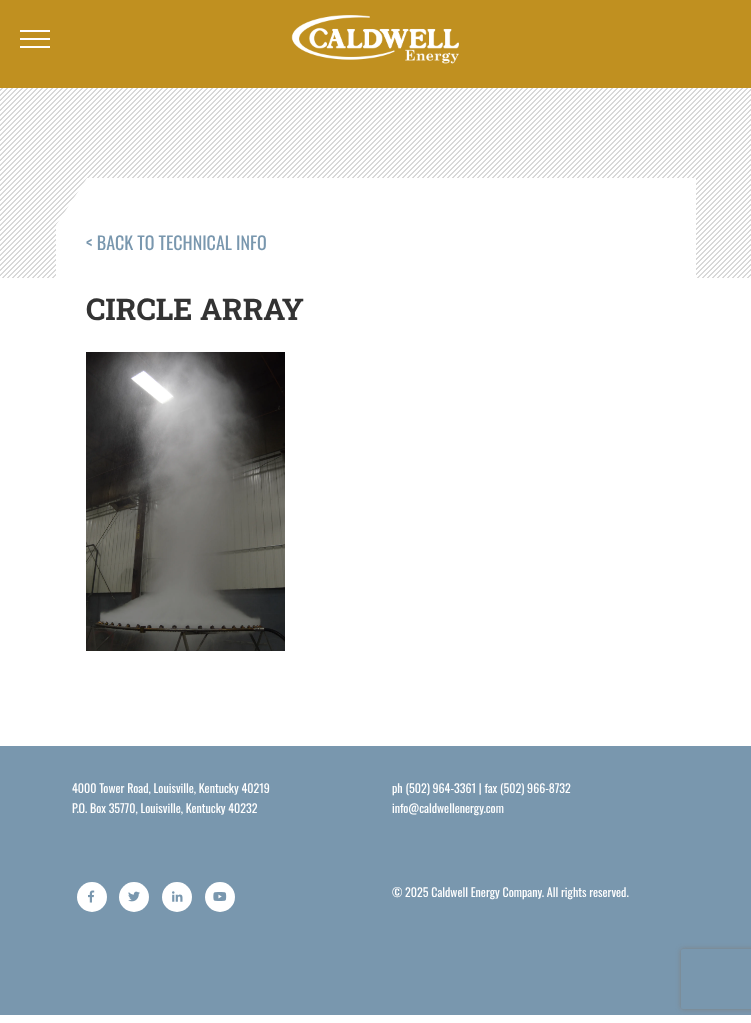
async function draw(canvas) {
	canvas.width = 751;
	canvas.height = 1023;
	const c = canvas.getContext('2d');
	c.miterLimit = 4;
	c.fontKerning = 'normal';
	async function loadImage(src) {
		const img = new Image();
		img.src = src;
		await img.decode();
		return img;
	}

	c.fillStyle = '#fff';
	c.fillRect(0, 0, 751, 1023);
	for (const [x, y, w, h, color] of [
		[0, 0, 751, 88, '#c09020'],
		[20, 30, 30, 2, '#fff'],
		[20, 38, 30, 2, '#fff'],
		[20, 46, 30, 2, '#fff'],
	]) {
		c.fillStyle = color;
		c.fillRect(x, y, w, h);
	}
	c.drawImage(await loadImage('img1.png'), 291, 15, 168, 49);
	c.fillStyle = '#b2b2b2';
	c.fillRect(0, 88, 751, 190);
	c.drawImage(await loadImage('img2.png'), 0, 88, 751, 190);
	c.fillStyle = '#fff';
	c.fillRect(56, 228, 640, 50);
	c.drawImage(await loadImage('img3.png'), 56, 178, 640, 50);
	c.font = '18px Oswald';
	c.fillStyle = '#7997ae';
	c.fillText('< BACK TO TECHNICAL INFO', 86, 250);
	c.font = 'bold 30px Roboto Slab';
	c.fillStyle = '#333';
	c.fillText('CIRCLE ARRAY', 86, 320);
	c.drawImage(await loadImage('img4.png'), 86, 352, 199, 299);
	c.fillStyle = '#7997ae';
	c.fillRect(0, 746, 751, 269);
	c.font = '12px Oswald';
	c.fillStyle = '#fff';
	for (const [text, x, y] of [
		['4000 Tower Road, Louisville, Kentucky 40219', 72, 793],
		['P.O. Box 35770, Louisville, Kentucky 40232', 72, 813],
		['ph (502) 964-3361 | fax (502) 966-8732', 392, 793],
		['info@caldwellenergy.com', 392, 813],
	]) {
		c.fillText(text, x, y);
	}
	c.beginPath();
	c.arc(92, 897, 15, 0, 2 * Math.PI);
	c.fill();
	c.drawImage(await loadImage('img5.png'), 88, 890, 7, 13);
	c.beginPath();
	c.arc(134, 897, 15, 0, 2 * Math.PI);
	c.fill();
	c.drawImage(await loadImage('img6.png'), 128, 891, 12, 11);
	c.beginPath();
	c.arc(177, 897, 15, 0, 2 * Math.PI);
	c.fill();
	c.drawImage(await loadImage('img7.png'), 172, 891, 11, 11);
	c.beginPath();
	c.arc(220, 897, 15, 0, 2 * Math.PI);
	c.fill();
	c.drawImage(await loadImage('img8.png'), 213, 892, 14, 9);
	c.fillText('© 2025 Caldwell Energy Company. All rights reserved.', 392, 897);
	c.save();
	c.beginPath();
	c.moveTo(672, 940);
	c.lineTo(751, 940);
	c.lineTo(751, 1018);
	c.lineTo(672, 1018);
	c.closePath();
	c.moveTo(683, 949);
	c.lineTo(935, 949);
	c.bezierCurveTo(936, 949, 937, 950, 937, 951);
	c.lineTo(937, 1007);
	c.bezierCurveTo(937, 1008, 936, 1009, 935, 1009);
	c.lineTo(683, 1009);
	c.bezierCurveTo(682, 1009, 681, 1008, 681, 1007);
	c.lineTo(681, 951);
	c.bezierCurveTo(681, 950, 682, 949, 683, 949);
	c.closePath();
	c.clip('evenodd');
	c.fillStyle = '#808080';
	c.filter = 'blur(2.5px)';
	c.beginPath();
	c.roundRect(681, 949, 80, 60, 2);
	c.fill();
	c.filter = 'none';
	c.restore();
}

draw(document.querySelector('canvas'));
